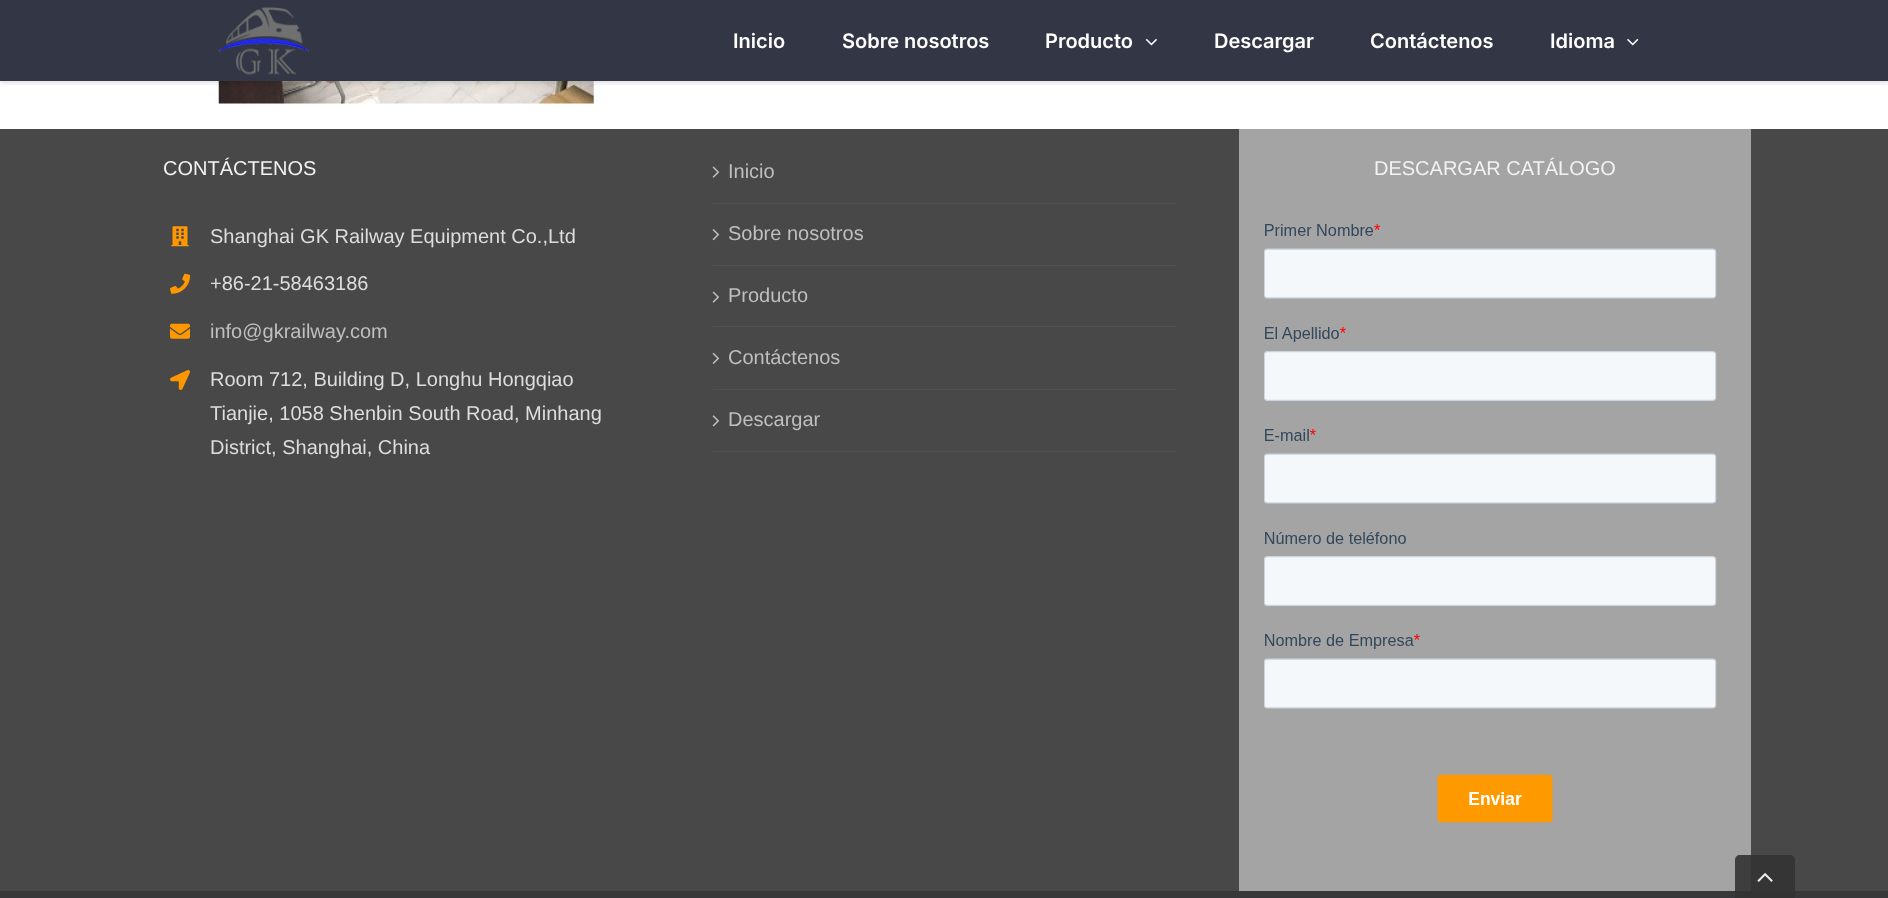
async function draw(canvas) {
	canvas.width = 1888;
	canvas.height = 898;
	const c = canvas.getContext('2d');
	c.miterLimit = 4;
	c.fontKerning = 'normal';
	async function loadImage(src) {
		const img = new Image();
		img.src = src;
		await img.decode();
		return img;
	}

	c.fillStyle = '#fff';
	c.fillRect(0, 0, 1888, 898);
	c.drawImage(await loadImage('img4.png'), 218, 81, 376, 23);
	c.fillStyle = '#0000001f';
	c.filter = 'blur(2px)';
	c.beginPath();
	c.rect(0, 1, 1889, 82);
	c.fill();
	c.filter = 'none';
	c.fillStyle = '#333645';
	c.fillRect(0, 0, 1888, 81);
	c.drawImage(await loadImage('img1.png'), 218, 7, 91, 68);
	c.font = '600 20px Inter';
	c.fillStyle = '#fff';
	for (const [text, x, y] of [
		['Inicio', 733, 48],
		['Sobre nosotros', 842, 48],
		['Producto', 1045, 48],
	]) {
		c.fillText(text, x, y);
	}
	c.drawImage(await loadImage('img2.png'), 1145, 38, 12, 8);
	for (const [text, x, y] of [
		['Descargar', 1214, 48],
		['Contáctenos', 1370, 48],
		['Idioma', 1550, 48],
	]) {
		c.fillText(text, x, y);
	}
	c.drawImage(await loadImage('img3.png'), 1627, 38, 12, 8);
	c.fillStyle = '#484848';
	c.fillRect(0, 129, 1888, 762);
	c.font = '20px Liberation Sans';
	c.fillStyle = '#f2f2f2';
	c.fillText('CONTÁCTENOS', 163, 175);
	c.drawImage(await loadImage('img5.png'), 171, 226, 18, 21);
	c.fillStyle = '#ddd';
	c.fillText('Shanghai GK Railway Equipment Co.,Ltd', 210, 243);
	c.drawImage(await loadImage('img6.png'), 170, 273, 20, 21);
	c.fillText('+86-21-58463186', 210, 290);
	c.drawImage(await loadImage('img7.png'), 170, 323, 20, 16);
	c.fillStyle = '#bfbfbf';
	c.fillText('info@gkrailway.com', 210, 338);
	c.drawImage(await loadImage('img8.png'), 170, 370, 20, 20);
	c.fillStyle = '#ddd';
	for (const [text, x, y] of [
		['Room 712, Building D, Longhu Hongqiao', 210, 386],
		['Tianjie, 1058 Shenbin South Road, Minhang', 210, 420],
		['District, Shanghai, China', 210, 454],
	]) {
		c.fillText(text, x, y);
	}
	c.fillStyle = '#505152';
	c.fillRect(713, 203, 463, 1);
	c.drawImage(await loadImage('img9.png'), 712, 166, 8, 12);
	c.fillStyle = '#bfbfbf';
	c.fillText('Inicio', 728, 178);
	c.fillStyle = '#505152';
	c.fillRect(713, 265, 463, 1);
	c.drawImage(await loadImage('img10.png'), 712, 229, 8, 12);
	c.fillStyle = '#bfbfbf';
	c.fillText('Sobre nosotros', 728, 240);
	c.fillStyle = '#505152';
	c.fillRect(713, 326, 463, 1);
	c.drawImage(await loadImage('img9.png'), 712, 291, 8, 12);
	c.fillStyle = '#bfbfbf';
	c.fillText('Producto', 728, 302);
	c.fillStyle = '#505152';
	c.fillRect(713, 389, 463, 1);
	c.drawImage(await loadImage('img11.png'), 712, 352, 8, 12);
	c.fillStyle = '#bfbfbf';
	c.fillText('Contáctenos', 728, 364);
	c.fillStyle = '#505152';
	c.fillRect(713, 451, 463, 1);
	c.drawImage(await loadImage('img12.png'), 712, 415, 8, 12);
	c.fillStyle = '#bfbfbf';
	c.fillText('Descargar', 728, 426);
	c.fillStyle = '#a4a4a4';
	c.fillRect(1239, 129, 512, 762);
	c.fillStyle = '#f2f2f2';
	c.fillText('DESCARGAR CATÁLOGO', 1374, 175);
	c.drawImage(await loadImage('img13.png'), 1264, 224, 453, 599);
	c.fillStyle = '#363839';
	c.fillRect(0, 891, 1888, 7);
	c.fillStyle = '#333333e6';
	c.beginPath();
	c.moveTo(1740, 855);
	c.lineTo(1790, 855);
	c.bezierCurveTo(1793, 855, 1795, 857, 1795, 860);
	c.lineTo(1795, 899);
	c.lineTo(1735, 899);
	c.lineTo(1735, 860);
	c.bezierCurveTo(1735, 857, 1737, 855, 1740, 855);
	c.closePath();
	c.fill();
	c.drawImage(await loadImage('img14.png'), 1757, 873, 16, 9);
}

draw(document.querySelector('canvas'));
